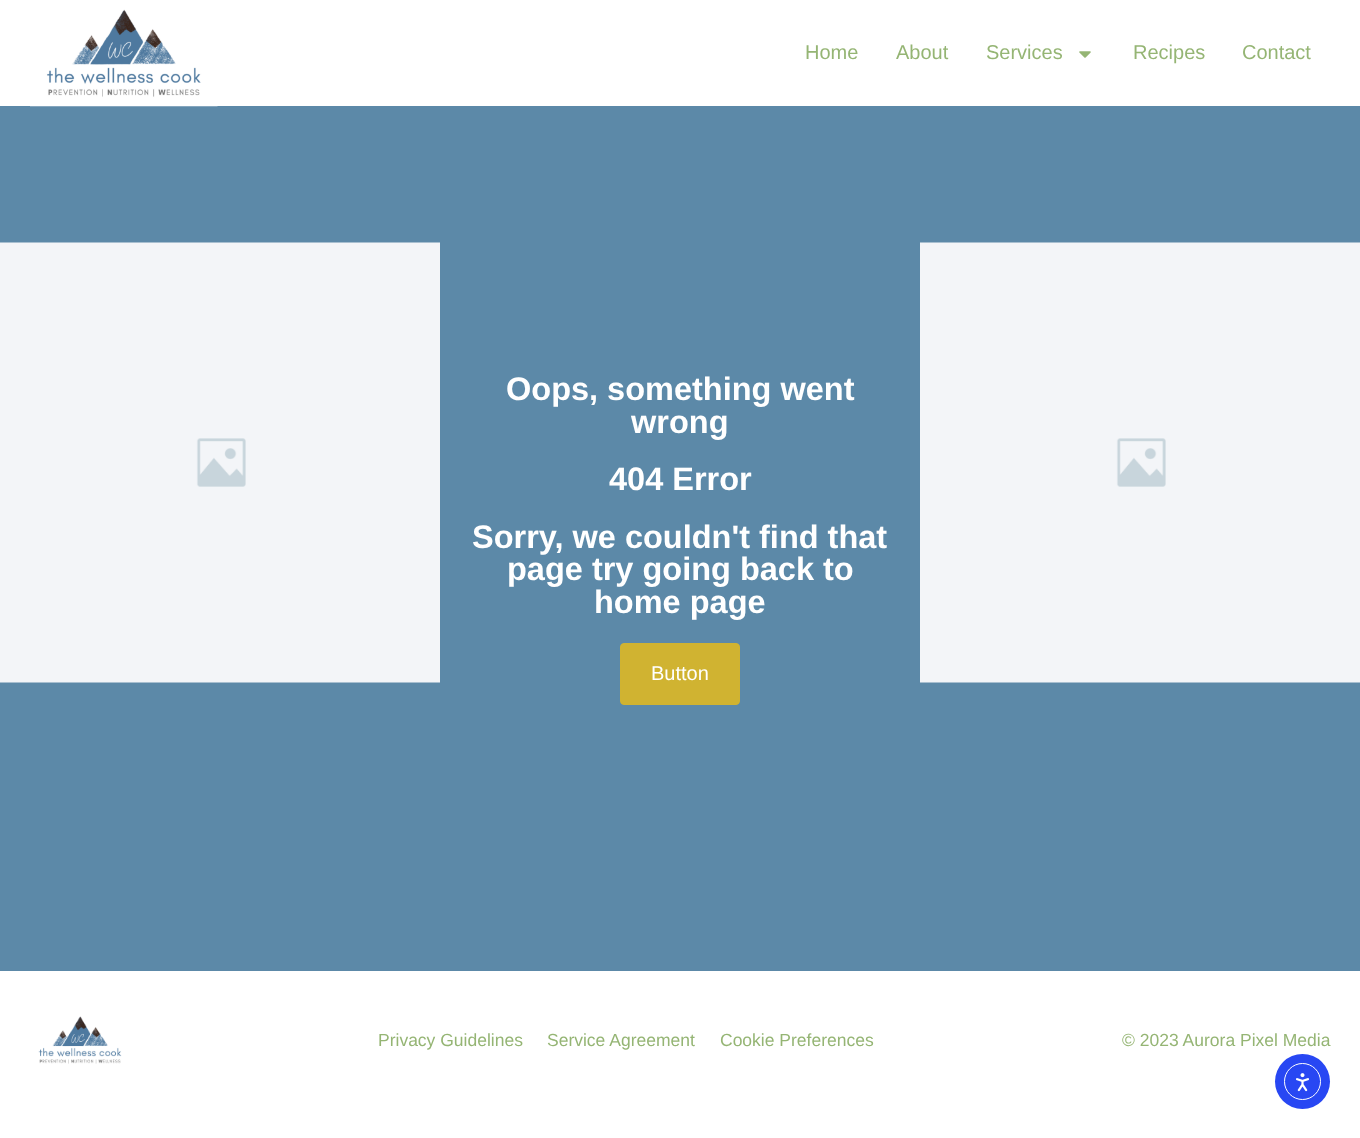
async function draw(canvas) {
	canvas.width = 1360;
	canvas.height = 1138;
	const c = canvas.getContext('2d');
	c.miterLimit = 4;
	c.fontKerning = 'normal';
	async function loadImage(src) {
		const img = new Image();
		img.src = src;
		await img.decode();
		return img;
	}

	c.fillStyle = '#fff';
	c.fillRect(0, 0, 1360, 1138);
	c.fillStyle = '#5c89a8';
	c.fillRect(0, 106, 1360, 865);
	c.drawImage(await loadImage('img1.png'), 30, 9, 188, 98);
	c.font = '20px Liberation Sans';
	c.fillStyle = '#95b574';
	for (const [text, x, y] of [
		['Home', 805, 59],
		['About', 896, 59],
		['Services', 986, 59],
	]) {
		c.fillText(text, x, y);
	}
	c.drawImage(await loadImage('img2.png'), 1079, 51, 12, 7);
	c.fillText('Recipes', 1133, 59);
	c.fillText('Contact', 1242, 59);
	c.drawImage(await loadImage('img3.png'), 0, 242, 440, 441);
	c.font = 'bold 32.5px Liberation Sans';
	c.fillStyle = '#fff';
	for (const [text, x, y] of [
		['Oops, something went', 506, 400],
		['wrong', 631, 433],
		['404 Error', 609, 490],
		['Sorry, we couldn\'t find that', 472, 548],
		['page try going back to', 507, 580],
		['home page', 594, 613],
	]) {
		c.fillText(text, x, y);
	}
	c.fillStyle = '#d0b331';
	c.beginPath();
	c.roundRect(620.5, 643.5, 119, 61, 3.5);
	c.fill();
	c.strokeStyle = '#d0b331';
	c.stroke();
	c.font = '20px Liberation Sans';
	c.fillStyle = '#fff';
	c.fillText('Button', 651, 680);
	c.drawImage(await loadImage('img3.png'), 920, 242, 440, 441);
	c.drawImage(await loadImage('img4.png'), 38, 1016, 84, 48);
	c.font = '17.5px Liberation Sans';
	c.fillStyle = '#95b574';
	for (const [text, x, y] of [
		['Privacy Guidelines', 378, 1046],
		['Service Agreement', 547, 1046],
		['Cookie Preferences', 720, 1046],
		['© 2023 Aurora Pixel Media', 1122, 1046],
	]) {
		c.fillText(text, x, y);
	}
	c.fillStyle = '#2847f3';
	c.beginPath();
	c.arc(1302.5, 1081.5, 27.5, 0, 2 * Math.PI);
	c.fill();
	c.beginPath();
	c.arc(1302.5, 1081.5, 18, 0, 2 * Math.PI);
	c.strokeStyle = '#fff';
	c.stroke();
	c.drawImage(await loadImage('img5.png'), 1296, 1073, 13, 19);
}

draw(document.querySelector('canvas'));
